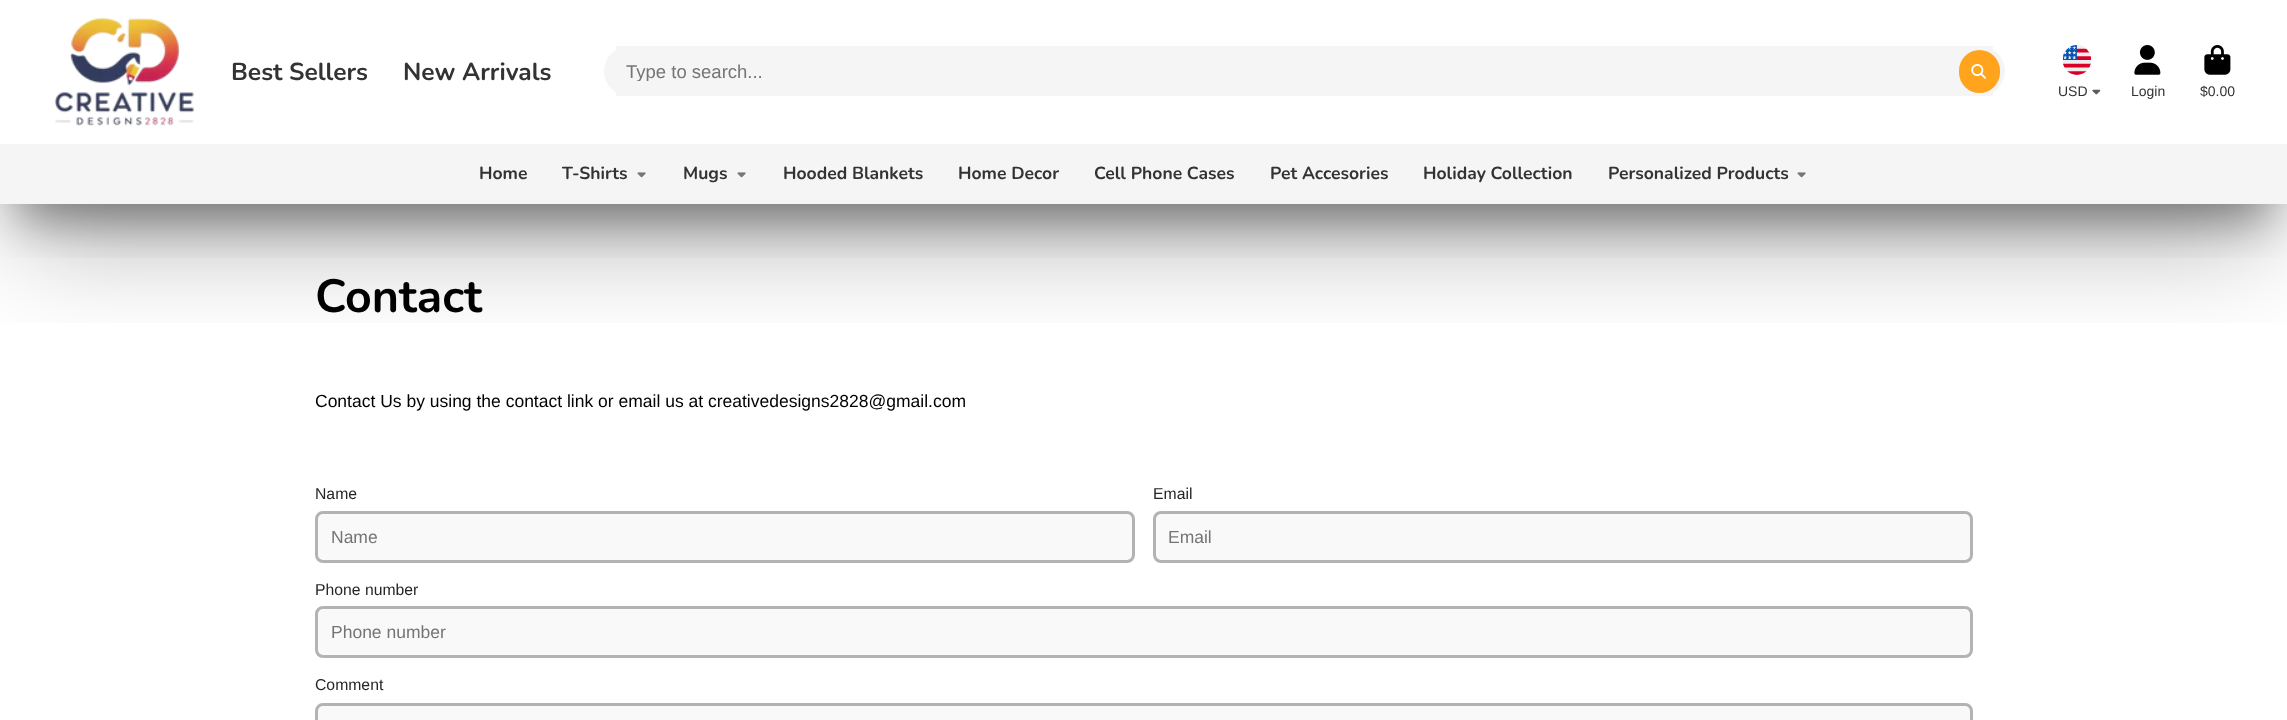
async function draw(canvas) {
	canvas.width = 2287;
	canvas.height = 720;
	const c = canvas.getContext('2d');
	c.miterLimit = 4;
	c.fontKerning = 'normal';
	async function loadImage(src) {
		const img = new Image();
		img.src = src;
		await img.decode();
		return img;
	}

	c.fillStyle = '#fff';
	c.fillRect(0, 0, 2287, 720);
	c.save();
	c.beginPath();
	c.rect(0, 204, 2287, 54);
	c.clip();
	c.fillStyle = '#00000066';
	c.filter = 'blur(24px)';
	c.beginPath();
	c.rect(18, 50, 2252, 169);
	c.fill();
	c.filter = 'none';
	c.restore();
	c.save();
	c.beginPath();
	c.rect(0, 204, 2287, 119);
	c.clip();
	c.fillStyle = '#0000004d';
	c.filter = 'blur(54.5px)';
	c.beginPath();
	c.rect(18, 73, 2252, 168);
	c.fill();
	c.filter = 'none';
	c.restore();
	c.drawImage(await loadImage('img1.png'), 54, 17, 140, 109);
	c.font = 'bold 24.5px Nunito';
	c.fillStyle = '#333';
	c.fillText('Best Sellers', 231, 80);
	c.fillText('New Arrivals', 403, 80);
	c.fillStyle = '#f5f5f5';
	c.fillRect(616, 46, 1377, 50);
	c.beginPath();
	c.roundRect(604, 46, 1401, 50, 25);
	c.fill();
	c.save();
	c.beginPath();
	c.rect(626, 61, 1358, 20);
	c.clip();
	c.font = '18.5px Liberation Sans';
	c.fillStyle = '#757575';
	c.fillText('Type to search...', 626, 78);
	c.restore();
	c.fillStyle = '#ffa41c';
	c.beginPath();
	c.roundRect(1959, 50, 41, 43, 20.5);
	c.fill();
	c.drawImage(await loadImage('img2.png'), 1971, 64, 15, 15);
	c.drawImage(await loadImage('img3.png'), 2063, 45, 28, 30);
	c.font = '14px Liberation Sans';
	c.fillStyle = '#333';
	c.fillText('USD', 2058, 96);
	c.drawImage(await loadImage('img4.png'), 2092, 89, 9, 6);
	c.drawImage(await loadImage('img5.png'), 2134, 45, 27, 30);
	c.fillText('Login', 2131, 96);
	c.drawImage(await loadImage('img6.png'), 2204, 45, 27, 30);
	c.fillText('$0.00', 2200, 96);
	c.fillStyle = '#f5f5f5';
	c.fillRect(0, 144, 2287, 60);
	c.font = 'bold 17.5px Nunito';
	c.fillStyle = '#333';
	c.fillText('Home', 479, 179);
	c.fillText('T-Shirts', 562, 179);
	c.drawImage(await loadImage('img7.png'), 637, 172, 9, 6);
	c.fillText('Mugs', 683, 179);
	c.drawImage(await loadImage('img7.png'), 737, 172, 9, 6);
	for (const [text, x, y] of [
		['Hooded Blankets', 783, 179],
		['Home Decor', 958, 179],
		['Cell Phone Cases', 1094, 179],
		['Pet Accesories', 1270, 179],
		['Holiday Collection', 1423, 179],
		['Personalized Products', 1608, 179],
	]) {
		c.fillText(text, x, y);
	}
	c.drawImage(await loadImage('img7.png'), 1797, 172, 9, 6);
	c.font = 'bold 46.5px Nunito';
	c.fillStyle = '#000';
	c.fillText('Contact', 315, 312);
	c.font = '17.5px Liberation Sans';
	c.fillText('Contact Us by using the contact link or email us at creativedesigns2828@gmail.com', 315, 407);
	c.font = '15.75px Liberation Sans';
	c.fillStyle = '#262626';
	c.fillText('Name', 315, 499);
	c.fillStyle = '#f9f9f9';
	c.beginPath();
	c.roundRect(316.5, 512.5, 817, 49, 6.5);
	c.fill();
	c.strokeStyle = '#b3b3b3';
	c.lineWidth = 3;
	c.stroke();
	c.font = '17.5px Liberation Sans';
	c.fillStyle = '#757575';
	c.fillText('Name', 331, 543);
	c.font = '15.75px Liberation Sans';
	c.fillStyle = '#262626';
	c.fillText('Email', 1153, 499);
	c.fillStyle = '#f9f9f9';
	c.beginPath();
	c.roundRect(1154.5, 512.5, 817, 49, 6.5);
	c.fill();
	c.stroke();
	c.font = '17.5px Liberation Sans';
	c.fillStyle = '#757575';
	c.fillText('Email', 1168, 543);
	c.font = '15.75px Liberation Sans';
	c.fillStyle = '#262626';
	c.fillText('Phone number', 315, 595);
	c.fillStyle = '#f9f9f9';
	c.beginPath();
	c.roundRect(316.5, 607.5, 1655, 49, 6.5);
	c.fill();
	c.stroke();
	c.font = '17.5px Liberation Sans';
	c.fillStyle = '#757575';
	c.fillText('Phone number', 331, 638);
	c.font = '15.75px Liberation Sans';
	c.fillStyle = '#262626';
	c.fillText('Comment', 315, 690);
	c.fillStyle = '#f9f9f9';
	c.beginPath();
	c.roundRect(316.5, 704.5, 1655, 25, 6.5);
	c.fill();
	c.stroke();
}

draw(document.querySelector('canvas'));
